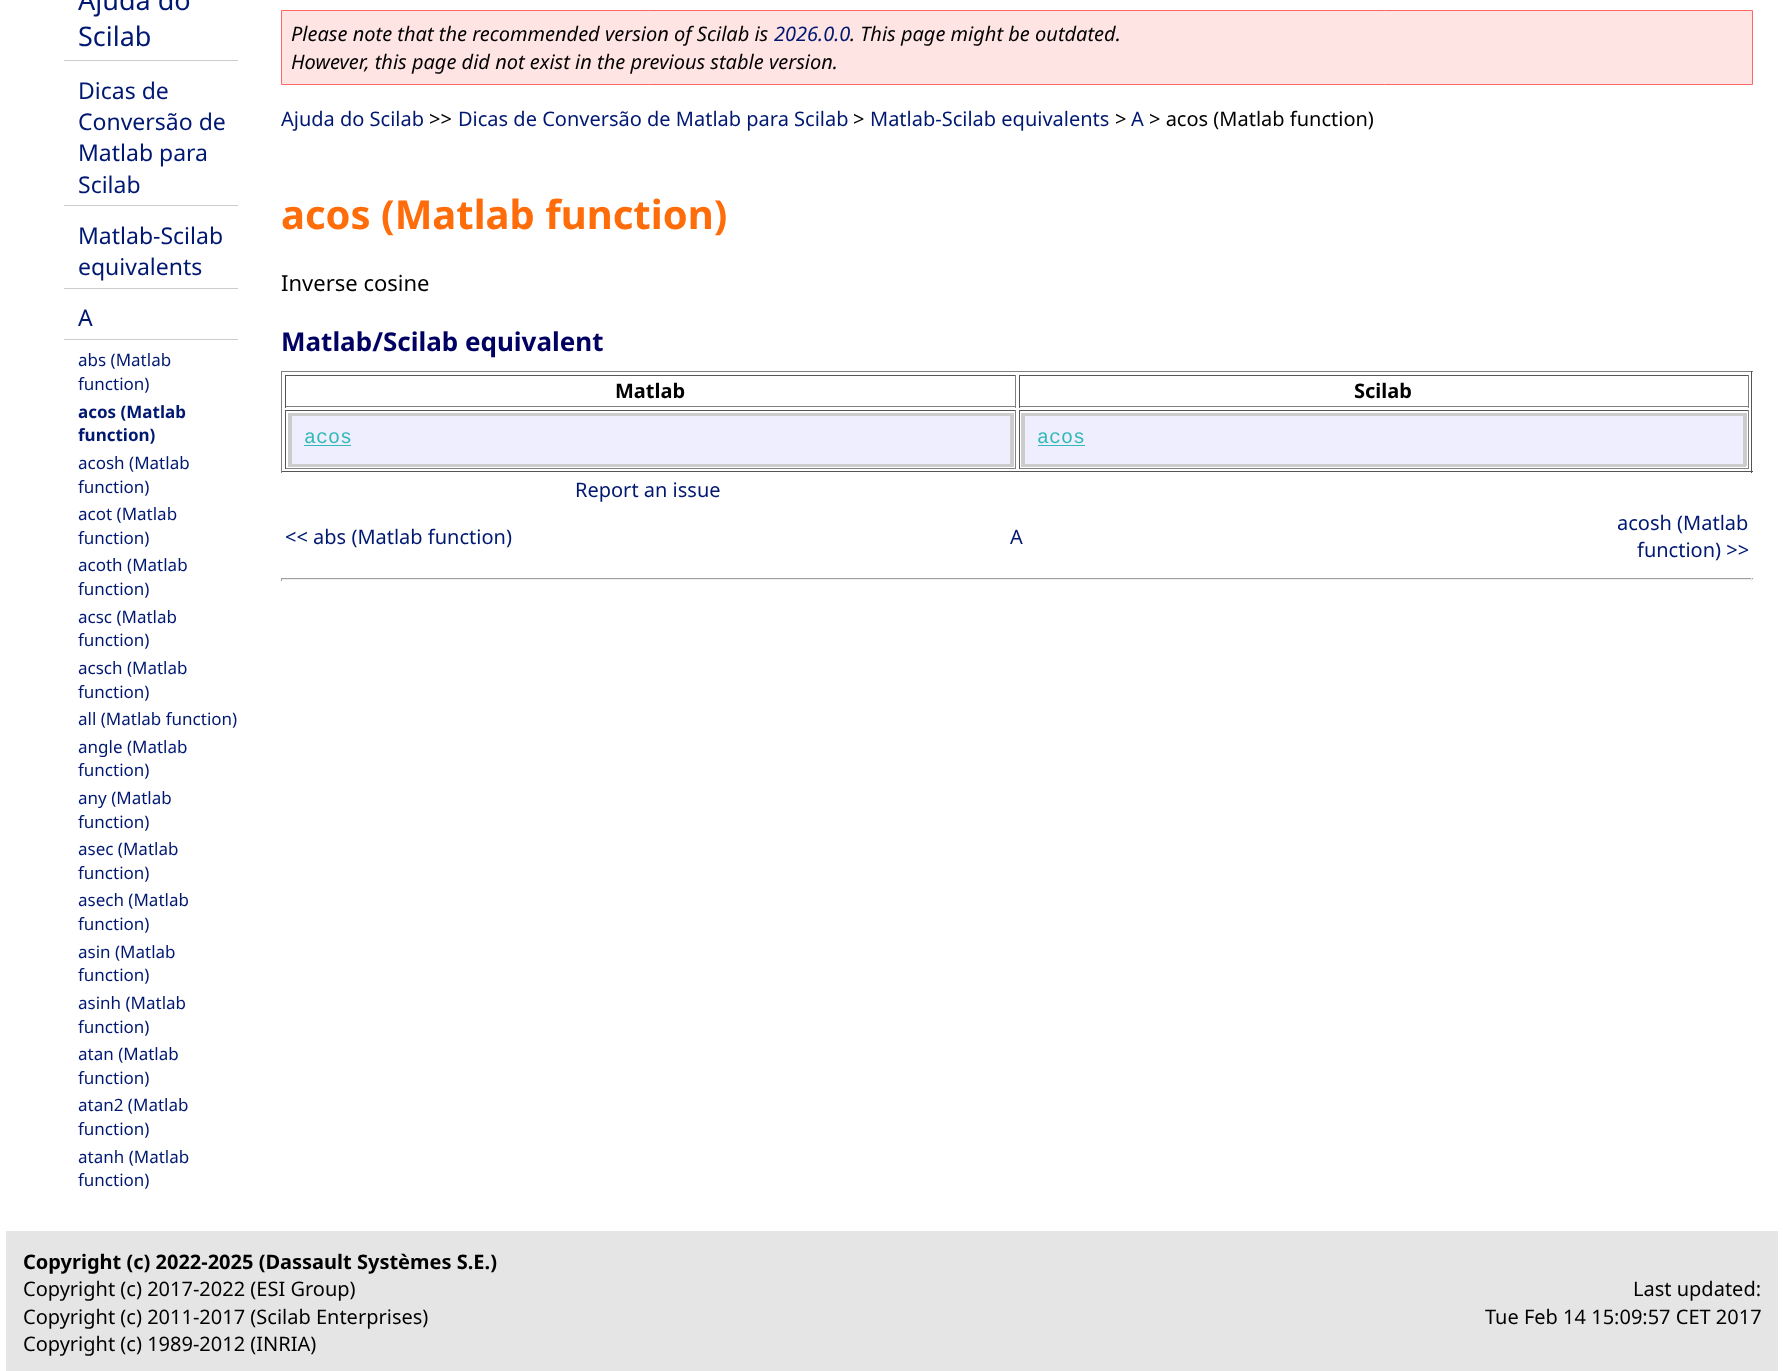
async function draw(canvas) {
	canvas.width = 1783;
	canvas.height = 1371;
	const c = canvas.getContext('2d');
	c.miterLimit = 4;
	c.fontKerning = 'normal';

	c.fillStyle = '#fff';
	c.fillRect(0, 0, 1783, 1371);
	c.fillStyle = '#ccc';
	c.fillRect(64, 60, 174, 1);
	c.font = '27px Noto Sans';
	c.fillStyle = '#001871';
	c.fillText('Ajuda do', 78, 10);
	c.fillText('Scilab', 78, 46);
	c.fillStyle = '#ccc';
	c.fillRect(64, 205, 174, 1);
	c.font = '23px Noto Sans';
	c.fillStyle = '#001871';
	for (const [text, x, y] of [
		['Dicas de', 78, 99],
		['Conversão de', 78, 130],
		['Matlab para', 78, 161],
		['Scilab', 78, 193],
	]) {
		c.fillText(text, x, y);
	}
	c.fillStyle = '#ccc';
	c.fillRect(64, 288, 174, 1);
	c.fillStyle = '#001871';
	c.fillText('Matlab-Scilab', 78, 244);
	c.fillText('equivalents', 78, 275);
	c.fillStyle = '#ccc';
	c.fillRect(64, 339, 174, 1);
	c.fillStyle = '#001871';
	c.fillText('A', 78, 326);
	c.font = '17px Noto Sans';
	c.fillText('abs (Matlab', 78, 366);
	c.fillText('function)', 78, 390);
	c.font = 'bold 17px Noto Sans';
	c.fillText('acos (Matlab', 78, 418);
	c.fillText('function)', 78, 441);
	c.font = '17px Noto Sans';
	for (const [text, x, y] of [
		['acosh (Matlab', 78, 469],
		['function)', 78, 493],
		['acot (Matlab', 78, 520],
		['function)', 78, 544],
		['acoth (Matlab', 78, 571],
		['function)', 78, 595],
		['acsc (Matlab', 78, 623],
		['function)', 78, 646],
		['acsch (Matlab', 78, 674],
		['function)', 78, 698],
		['all (Matlab function)', 78, 725],
		['angle (Matlab', 78, 753],
		['function)', 78, 776],
		['any (Matlab', 78, 804],
		['function)', 78, 828],
		['asec (Matlab', 78, 855],
		['function)', 78, 879],
		['asech (Matlab', 78, 906],
		['function)', 78, 930],
		['asin (Matlab', 78, 958],
		['function)', 78, 981],
		['asinh (Matlab', 78, 1009],
		['function)', 78, 1033],
		['atan (Matlab', 78, 1060],
		['function)', 78, 1084],
		['atan2 (Matlab', 78, 1111],
		['function)', 78, 1135],
		['atanh (Matlab', 78, 1163],
		['function)', 78, 1186],
	]) {
		c.fillText(text, x, y);
	}
	c.fillStyle = '#ffe4e4';
	c.beginPath();
	c.rect(281.5, 10.5, 1471, 74);
	c.fill();
	c.strokeStyle = '#f66';
	c.stroke();
	c.font = 'italic 20px Noto Sans';
	c.fillStyle = '#000';
	c.fillText('Please note that the recommended version of Scilab is', 291, 41);
	c.fillStyle = '#001871';
	c.fillText('2026.0.0', 774, 41);
	c.fillStyle = '#000';
	c.fillText('. This page might be outdated.', 850, 41);
	c.fillText('However, this page did not exist in the previous stable version.', 291, 69);
	c.font = '20px Noto Sans';
	c.fillStyle = '#001871';
	c.fillText('Ajuda do Scilab', 281, 126);
	c.fillStyle = '#000';
	c.fillText('>>', 429, 126);
	c.fillStyle = '#001871';
	c.fillText('Dicas de Conversão de Matlab para Scilab', 458, 126);
	c.fillStyle = '#000';
	c.fillText('>', 853, 126);
	c.fillStyle = '#001871';
	c.fillText('Matlab-Scilab equivalents', 870, 126);
	c.fillStyle = '#000';
	c.fillText('>', 1115, 126);
	c.fillStyle = '#001871';
	c.fillText('A', 1131, 126);
	c.fillStyle = '#000';
	c.fillText('> acos (Matlab function)', 1149, 126);
	c.font = 'bold 40px Noto Sans';
	c.fillStyle = '#ff6c0a';
	c.fillText('acos (Matlab function)', 281, 229);
	c.font = '22px Noto Sans';
	c.fillStyle = '#000';
	c.fillText('Inverse cosine', 281, 291);
	c.font = 'bold 26px Noto Sans';
	c.fillStyle = '#000063';
	c.fillText('Matlab/Scilab equivalent', 281, 351);
	for (const [x, y, w, h, color] of [
		[281, 371, 1472, 1, '#808080'],
		[1751, 371, 1, 102, '#555'],
		[281, 471, 1472, 1, '#555'],
		[281, 371, 1, 102, '#808080'],
		[285, 375, 731, 1, '#555'],
		[1015, 375, 1, 33, '#808080'],
		[285, 406, 731, 1, '#808080'],
		[285, 375, 1, 33, '#555'],
	]) {
		c.fillStyle = color;
		c.fillRect(x, y, w, h);
	}
	c.font = 'bold 20px Noto Sans';
	c.fillStyle = '#000';
	c.fillText('Matlab', 615, 398);
	for (const [x, y, w, h, color] of [
		[1019, 375, 730, 1, '#555'],
		[1748, 375, 1, 33, '#808080'],
		[1019, 406, 730, 1, '#808080'],
		[1019, 375, 1, 33, '#555'],
	]) {
		c.fillStyle = color;
		c.fillRect(x, y, w, h);
	}
	c.fillStyle = '#000';
	c.fillText('Scilab', 1354, 398);
	for (const [x, y, w, h, color] of [
		[285, 410, 731, 1, '#555'],
		[1015, 410, 1, 59, '#808080'],
		[285, 468, 731, 1, '#808080'],
		[285, 410, 1, 59, '#555'],
		[292, 416, 718, 48, '#eef'],
		[288, 413, 726, 3, '#ccc'],
		[1010, 413, 4, 53, '#ccc'],
		[288, 464, 726, 3, '#ccc'],
		[288, 413, 4, 53, '#ccc'],
	]) {
		c.fillStyle = color;
		c.fillRect(x, y, w, h);
	}
	c.font = '20px Liberation Mono';
	c.fillStyle = '#32b9b9';
	c.fillText('acos', 304, 443);
	for (const [x, y, w, h, color] of [
		[304, 445, 47, 1, '#32b9b9'],
		[1019, 410, 730, 1, '#555'],
		[1748, 410, 1, 59, '#808080'],
		[1019, 468, 730, 1, '#808080'],
		[1019, 410, 1, 59, '#555'],
		[1025, 416, 718, 48, '#eef'],
		[1021, 413, 725, 3, '#ccc'],
		[1743, 413, 4, 53, '#ccc'],
		[1021, 464, 725, 3, '#ccc'],
		[1021, 413, 4, 53, '#ccc'],
	]) {
		c.fillStyle = color;
		c.fillRect(x, y, w, h);
	}
	c.fillStyle = '#32b9b9';
	c.fillText('acos', 1037, 443);
	c.fillRect(1038, 445, 47, 1);
	c.font = '20px Noto Sans';
	c.fillStyle = '#001871';
	for (const [text, x, y] of [
		['Report an issue', 575, 497],
		['<< abs (Matlab function)', 285, 544],
		['A', 1010, 544],
		['acosh (Matlab', 1617, 530],
		['function) >>', 1637, 557],
	]) {
		c.fillText(text, x, y);
	}
	for (const [x, y, w, h, color] of [
		[281, 578, 1472, 1, '#9f9f9f'],
		[1751, 578, 1, 3, '#eee'],
		[281, 579, 1472, 1, '#eee'],
		[281, 578, 1, 3, '#9f9f9f'],
		[6, 1231, 1772, 140, '#e5e5e5'],
	]) {
		c.fillStyle = color;
		c.fillRect(x, y, w, h);
	}
	c.font = 'bold 20px Noto Sans';
	c.fillStyle = '#000';
	c.fillText('Copyright (c) 2022-2025 (Dassault Systèmes S.E.)', 23, 1269);
	c.font = '20px Noto Sans';
	for (const [text, x, y] of [
		['Copyright (c) 2017-2022 (ESI Group)', 23, 1296],
		['Copyright (c) 2011-2017 (Scilab Enterprises)', 23, 1324],
		['Copyright (c) 1989-2012 (INRIA)', 23, 1351],
		['Last updated:', 1633, 1296],
		['Tue Feb 14 15:09:57 CET 2017', 1485, 1324],
	]) {
		c.fillText(text, x, y);
	}
}

draw(document.querySelector('canvas'));
